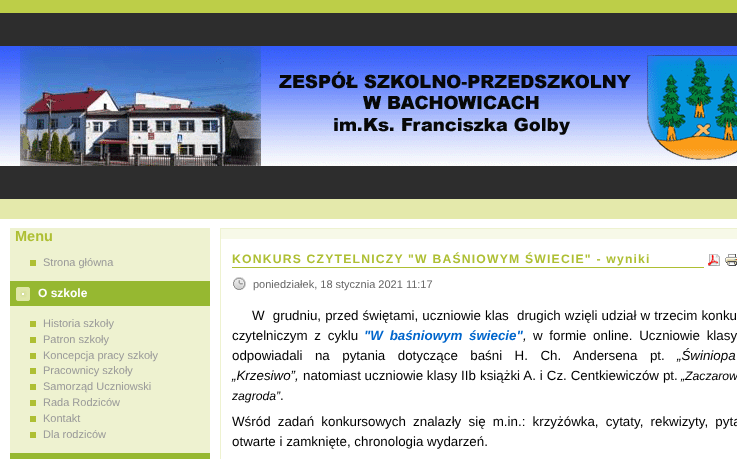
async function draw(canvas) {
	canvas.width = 737;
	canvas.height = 459;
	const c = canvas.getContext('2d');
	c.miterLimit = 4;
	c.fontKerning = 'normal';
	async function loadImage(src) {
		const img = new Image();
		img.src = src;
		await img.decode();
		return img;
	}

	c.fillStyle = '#bdce48';
	c.fillRect(0, 0, 737, 459);
	c.fillStyle = '#2d2d2d';
	c.fillRect(0, 13, 737, 33);
	c.drawImage(await loadImage('img1.png'), 0, 46, 737, 120);
	c.fillRect(0, 166, 737, 33);
	c.fillStyle = '#e4e9ab';
	c.fillRect(0, 199, 737, 10);
	c.drawImage(await loadImage('img2.png'), 0, 209, 737, 20);
	c.drawImage(await loadImage('img3.png'), 0, 229, 737, 230);
	c.font = 'bold 14.5px Liberation Sans';
	c.fillStyle = '#aebf33';
	c.fillText('Menu', 15, 241);
	c.fillRect(30, 260, 6, 6);
	c.font = '11px Liberation Sans';
	c.fillStyle = '#999';
	c.fillText('Strona główna', 43, 266);
	c.fillStyle = '#96b831';
	c.fillRect(10, 281, 200, 25);
	c.drawImage(await loadImage('img4.png'), 16, 287, 14, 14);
	c.font = 'bold 12px Liberation Sans';
	c.fillStyle = '#fff';
	c.fillText('O szkole', 38, 297);
	c.fillStyle = '#aebf33';
	c.fillRect(30, 321, 6, 6);
	c.font = '11px Liberation Sans';
	c.fillStyle = '#999';
	c.fillText('Historia szkoły', 43, 327);
	c.fillStyle = '#aebf33';
	c.fillRect(30, 337, 6, 6);
	c.fillStyle = '#999';
	c.fillText('Patron szkoły', 43, 343);
	c.fillStyle = '#aebf33';
	c.fillRect(30, 353, 6, 6);
	c.fillStyle = '#999';
	c.fillText('Koncepcja pracy szkoły', 43, 359);
	c.fillStyle = '#aebf33';
	c.fillRect(30, 368, 6, 6);
	c.fillStyle = '#999';
	c.fillText('Pracownicy szkoły', 43, 374);
	c.fillStyle = '#aebf33';
	c.fillRect(30, 384, 6, 6);
	c.fillStyle = '#999';
	c.fillText('Samorząd Uczniowski', 43, 390);
	c.fillStyle = '#aebf33';
	c.fillRect(30, 400, 6, 6);
	c.fillStyle = '#999';
	c.fillText('Rada Rodziców', 43, 406);
	c.fillStyle = '#aebf33';
	c.fillRect(30, 416, 6, 6);
	c.fillStyle = '#999';
	c.fillText('Kontakt', 43, 422);
	c.fillStyle = '#aebf33';
	c.fillRect(30, 432, 6, 6);
	c.fillStyle = '#999';
	c.fillText('Dla rodziców', 43, 438);
	for (const [x, y, w, h, color] of [
		[10, 453, 200, 6, '#96b831'],
		[221, 229, 516, 10, '#f7f9e8'],
		[232, 267, 472, 1, '#aebf33'],
	]) {
		c.fillStyle = color;
		c.fillRect(x, y, w, h);
	}
	c.letterSpacing = '1.2px';
	c.font = 'bold 12.2px Liberation Sans';
	c.fillText('KONKURS CZYTELNICZY "W BAŚNIOWYM ŚWIECIE" - wyniki', 232, 263);
	c.drawImage(await loadImage('img5.png'), 708, 254, 12, 12);
	c.drawImage(await loadImage('img6.png'), 725, 254, 12, 12);
	c.drawImage(await loadImage('img7.png'), 233, 277, 13, 13);
	c.letterSpacing = '0px';
	c.font = '11px Liberation Sans';
	c.fillStyle = '#666';
	c.fillText('poniedziałek, 18 stycznia 2021 11:17', 253, 288);
	c.wordSpacing = '0.4px';
	c.font = '13.35px Liberation Sans';
	c.fillStyle = '#000';
	c.fillText('W  grudniu, przed świętami, uczniowie klas  drugich wzięli udział w trzecim konku', 252, 320);
	c.wordSpacing = '3px';
	c.fillText('czytelniczym z cyklu', 232, 340);
	c.font = 'italic bold 13.35px Liberation Sans';
	c.fillStyle = '#06c';
	c.fillText('"W baśniowym świecie"', 364, 340);
	c.wordSpacing = '0px';
	c.font = 'italic 13.35px Liberation Sans';
	c.fillStyle = '#000';
	c.fillText(',', 523, 340);
	c.wordSpacing = '3px';
	c.font = '13.35px Liberation Sans';
	c.fillText('w formie online. Uczniowie klasy', 533, 340);
	c.wordSpacing = '8.75px';
	c.fillText('odpowiadali na pytania dotyczące baśni H. Ch. Andersena pt.', 232, 360);
	c.font = 'italic 13.35px Liberation Sans';
	c.fillText('„Świniopa', 677, 360);
	c.wordSpacing = '0px';
	c.fillText('„Krzesiwo”,', 232, 380);
	c.font = '13.35px Liberation Sans';
	c.fillText('natomiast uczniowie klasy IIb', 303, 380);
	c.wordSpacing = '0.25px';
	c.fillText('książki A. i Cz. Centkiewiczów pt.', 480, 380);
	c.wordSpacing = '0px';
	c.font = 'italic 12.2px Liberation Sans';
	c.fillText('„Zaczarow', 681, 380);
	c.fillText('zagroda”', 232, 400);
	c.font = '13.35px Liberation Sans';
	c.fillText('.', 280, 400);
	c.wordSpacing = '3.5px';
	c.fillText('Wśród zadań konkursowych znalazły się m.in.: krzyżówka, cytaty, rekwizyty, pyta', 232, 426);
	c.wordSpacing = '0px';
	c.fillText('otwarte i zamknięte, chronologia wydarzeń.', 232, 446);
}

draw(document.querySelector('canvas'));
